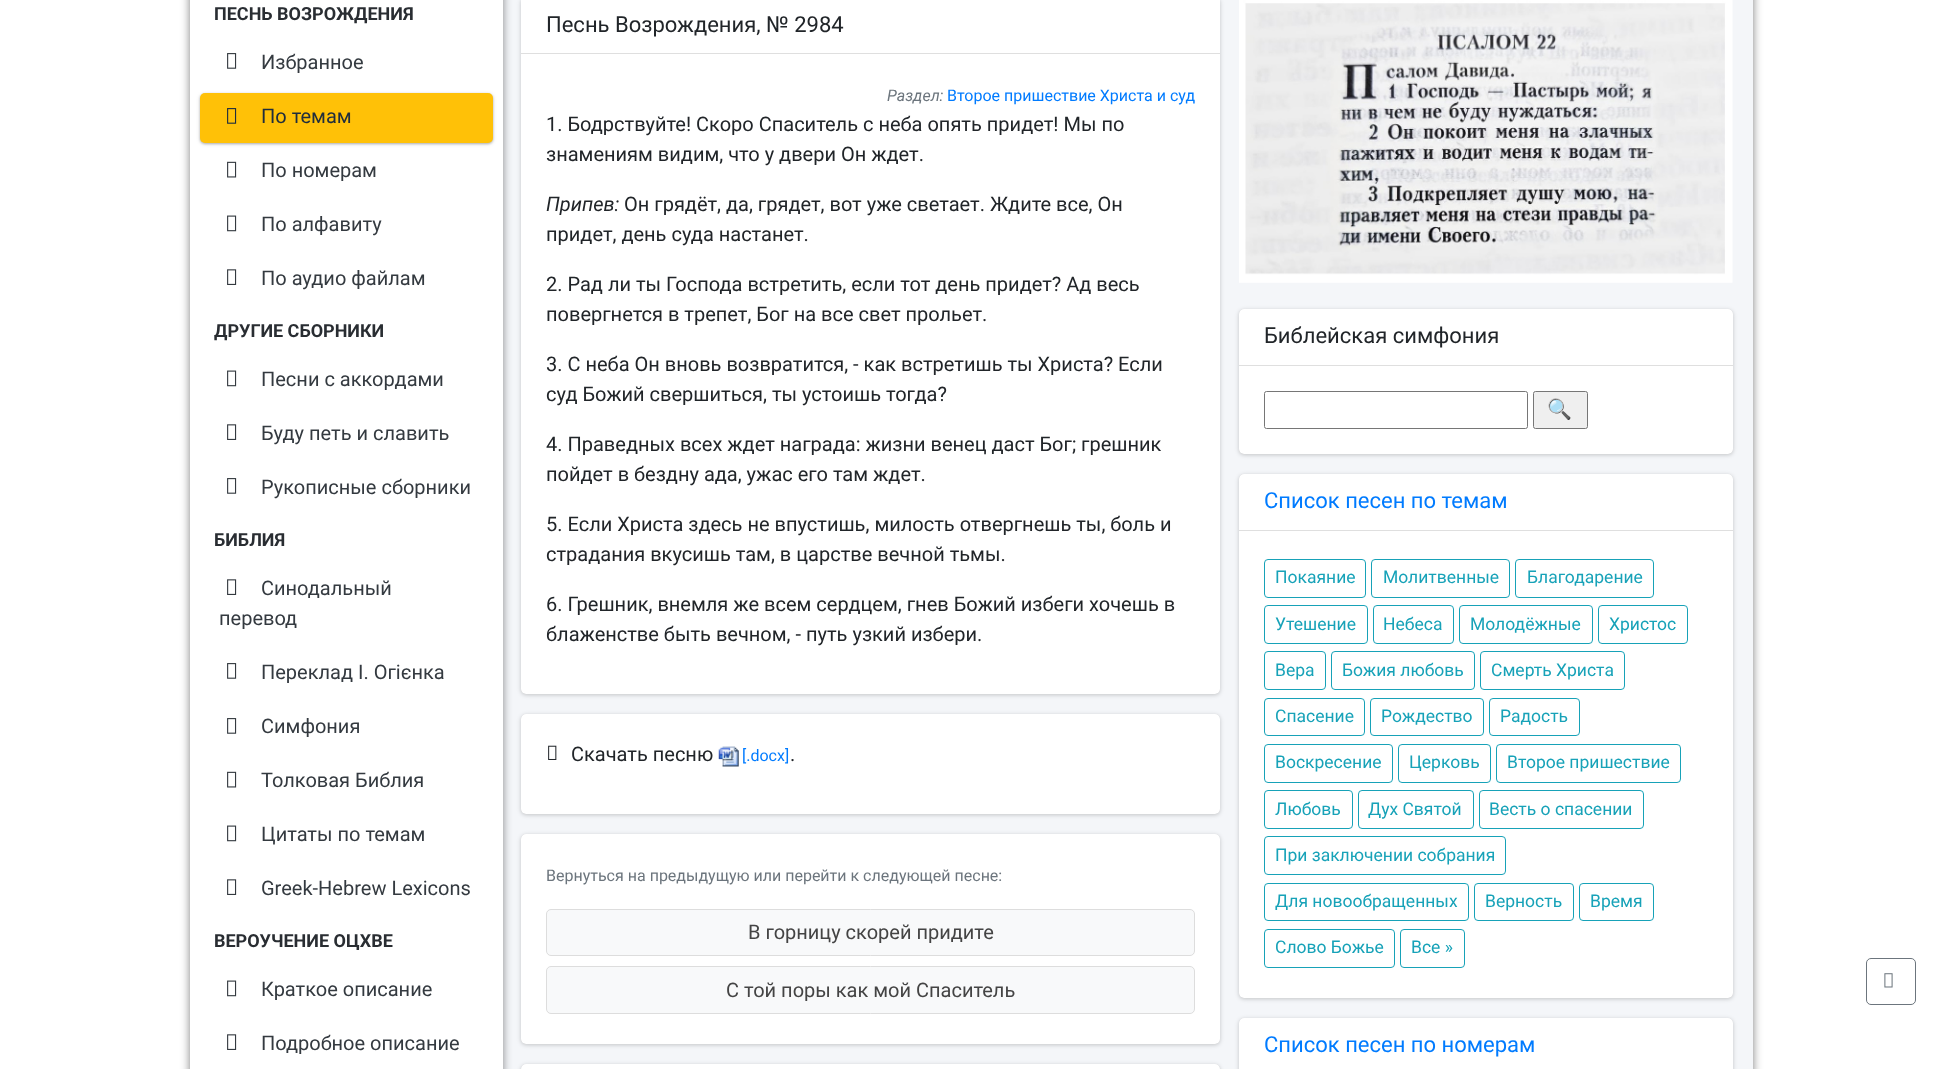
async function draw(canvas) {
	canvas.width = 1941;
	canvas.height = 1069;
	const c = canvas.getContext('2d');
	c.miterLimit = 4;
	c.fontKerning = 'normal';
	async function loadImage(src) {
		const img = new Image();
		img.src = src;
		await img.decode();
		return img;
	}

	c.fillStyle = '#fff';
	c.fillRect(0, 0, 1941, 1069);
	c.fillStyle = '#00000080';
	c.filter = 'blur(5px)';
	c.beginPath();
	c.rect(190, -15, 1563, 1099);
	c.fill();
	c.filter = 'none';
	c.fillStyle = '#f4f6f9';
	c.fillRect(503, 0, 1250, 1069);
	c.save();
	c.beginPath();
	c.rect(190, 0, 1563, 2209);
	c.clip();
	c.fillStyle = '#00000038';
	c.filter = 'blur(5px)';
	c.beginPath();
	c.rect(190, -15, 313, 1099);
	c.fill();
	c.filter = 'none';
	c.fillStyle = '#00000040';
	c.filter = 'blur(4px)';
	c.beginPath();
	c.rect(190, -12, 313, 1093);
	c.fill();
	c.filter = 'none';
	c.restore();
	c.fillStyle = '#fff';
	c.fillRect(190, 0, 313, 1069);
	c.font = 'bold 18px Roboto';
	c.fillStyle = '#292d32';
	c.fillText('ПЕСНЬ ВОЗРОЖДЕНИЯ', 214, 20);
	c.drawImage(await loadImage('img1.png'), 227, 53, 10, 16);
	c.font = '20px Roboto';
	c.fillStyle = '#343a40';
	c.fillText('Избранное', 261, 69);
	c.fillStyle = '#0000003d';
	c.filter = 'blur(1px)';
	c.beginPath();
	c.roundRect(200, 94, 293, 50, 5);
	c.fill();
	c.filter = 'none';
	c.fillStyle = '#0000001f';
	c.filter = 'blur(2px)';
	c.beginPath();
	c.roundRect(200, 94, 293, 50, 5);
	c.fill();
	c.filter = 'none';
	c.fillStyle = '#ffc107';
	c.beginPath();
	c.roundRect(200, 93, 293, 50, 5);
	c.fill();
	c.drawImage(await loadImage('img2.png'), 227, 108, 10, 16);
	c.fillStyle = '#1f2d3d';
	c.fillText('По темам', 261, 123);
	c.drawImage(await loadImage('img3.png'), 227, 161, 10, 17);
	c.fillStyle = '#343a40';
	c.fillText('По номерам', 261, 177);
	c.drawImage(await loadImage('img4.png'), 227, 215, 10, 17);
	c.fillText('По алфавиту', 261, 231);
	c.drawImage(await loadImage('img5.png'), 227, 269, 10, 16);
	c.fillText('По аудио файлам', 261, 285);
	c.font = 'bold 18px Roboto';
	c.fillStyle = '#292d32';
	c.fillText('ДРУГИЕ СБОРНИКИ', 214, 337);
	c.drawImage(await loadImage('img4.png'), 227, 370, 10, 17);
	c.font = '20px Roboto';
	c.fillStyle = '#343a40';
	c.fillText('Песни с аккордами', 261, 386);
	c.drawImage(await loadImage('img5.png'), 227, 424, 10, 16);
	c.fillText('Буду петь и славить', 261, 440);
	c.drawImage(await loadImage('img1.png'), 227, 478, 10, 16);
	c.fillText('Рукописные сборники', 261, 494);
	c.font = 'bold 18px Roboto';
	c.fillStyle = '#292d32';
	c.fillText('БИБЛИЯ', 214, 546);
	c.drawImage(await loadImage('img5.png'), 227, 579, 10, 16);
	c.font = '20px Roboto';
	c.fillStyle = '#343a40';
	c.fillText('Синодальный', 261, 595);
	c.fillText('перевод', 219, 625);
	c.drawImage(await loadImage('img1.png'), 227, 663, 10, 16);
	c.fillText('Переклад І. Огієнка', 261, 679);
	c.drawImage(await loadImage('img1.png'), 227, 718, 10, 16);
	c.fillText('Симфония', 261, 733);
	c.drawImage(await loadImage('img3.png'), 227, 771, 10, 17);
	c.fillText('Толковая Библия', 261, 787);
	c.drawImage(await loadImage('img4.png'), 227, 825, 10, 17);
	c.fillText('Цитаты по темам', 261, 841);
	c.drawImage(await loadImage('img5.png'), 227, 879, 10, 16);
	c.fillText('Greek-Hebrew Lexicons', 261, 895);
	c.font = 'bold 18px Roboto';
	c.fillStyle = '#292d32';
	c.fillText('ВЕРОУЧЕНИЕ ОЦХВЕ', 214, 947);
	c.drawImage(await loadImage('img4.png'), 227, 980, 10, 17);
	c.font = '20px Roboto';
	c.fillStyle = '#343a40';
	c.fillText('Краткое описание', 261, 996);
	c.drawImage(await loadImage('img5.png'), 227, 1034, 10, 16);
	c.fillText('Подробное описание', 261, 1050);
	c.fillStyle = '#00000033';
	c.filter = 'blur(2px)';
	c.beginPath();
	c.roundRect(521, -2, 699, 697, 5);
	c.fill();
	c.filter = 'none';
	c.fillStyle = '#0000001f';
	c.filter = 'blur(0.5px)';
	c.beginPath();
	c.roundRect(521, -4, 699, 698, 5);
	c.fill();
	c.filter = 'none';
	c.fillStyle = '#fff';
	c.beginPath();
	c.roundRect(521, -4, 699, 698, 5);
	c.fill();
	c.fillStyle = '#dfdfdf';
	c.fillRect(521, 53, 699, 1);
	c.font = '22px Roboto';
	c.fillStyle = '#212529';
	c.fillText('Песнь Возрождения, № 2984', 546, 32);
	c.font = 'italic 16px Roboto';
	c.fillStyle = '#6c757d';
	c.fillText('Раздел:', 887, 101);
	c.font = '16px Roboto';
	c.fillStyle = '#007bff';
	c.fillText('Второе пришествие Христа и суд', 947, 101);
	c.font = '20px Roboto';
	c.fillStyle = '#212529';
	c.fillText('1. Бодрствуйте! Скоро Спаситель с неба опять придет! Мы по', 546, 131);
	c.fillText('знамениям видим, что у двери Он ждет.', 546, 161);
	c.font = 'italic 20px Roboto';
	c.fillText('Припев:', 546, 211);
	c.font = '20px Roboto';
	for (const [text, x, y] of [
		['Он грядёт, да, грядет, вот уже светает. Ждите все, Он', 624, 211],
		['придет, день суда настанет.', 546, 241],
		['2. Рад ли ты Господа встретить, если тот день придет? Ад весь', 546, 291],
		['повергнется в трепет, Бог на все свет прольет.', 546, 321],
		['3. С неба Он вновь возвратится, - как встретишь ты Христа? Если', 546, 371],
		['суд Божий свершиться, ты устоишь тогда?', 546, 401],
		['4. Праведных всех ждет награда: жизни венец даст Бог; грешник', 546, 451],
		['пойдет в бездну ада, ужас его там ждет.', 546, 481],
		['5. Если Христа здесь не впустишь, милость отвергнешь ты, боль и', 546, 531],
		['страдания вкусишь там, в царстве вечной тьмы.', 546, 561],
		['6. Грешник, внемля же всем сердцем, гнев Божий избеги хочешь в', 546, 611],
		['блаженстве быть вечном, - путь узкий избери.', 546, 641],
	]) {
		c.fillText(text, x, y);
	}
	c.fillStyle = '#00000033';
	c.filter = 'blur(2px)';
	c.beginPath();
	c.roundRect(521, 715, 699, 100, 5);
	c.fill();
	c.filter = 'none';
	c.fillStyle = '#0000001f';
	c.filter = 'blur(0.5px)';
	c.beginPath();
	c.roundRect(521, 714, 699, 100, 5);
	c.fill();
	c.filter = 'none';
	c.fillStyle = '#fff';
	c.beginPath();
	c.roundRect(521, 714, 699, 100, 5);
	c.fill();
	c.drawImage(await loadImage('img6.png'), 548, 745, 9, 15);
	c.fillStyle = '#212529';
	c.fillText('Скачать песню', 571, 761);
	c.drawImage(await loadImage('img7.png'), 718, 746, 21, 21);
	c.font = '16px Roboto';
	c.fillStyle = '#007bff';
	c.fillText('[.docx]', 742, 761);
	c.font = '20px Roboto';
	c.fillStyle = '#212529';
	c.fillText('.', 790, 761);
	c.fillStyle = '#00000033';
	c.filter = 'blur(2px)';
	c.beginPath();
	c.roundRect(521, 835, 699, 210, 5);
	c.fill();
	c.filter = 'none';
	c.fillStyle = '#0000001f';
	c.filter = 'blur(0.5px)';
	c.beginPath();
	c.roundRect(521, 834, 699, 210, 5);
	c.fill();
	c.filter = 'none';
	c.fillStyle = '#fff';
	c.beginPath();
	c.roundRect(521, 834, 699, 210, 5);
	c.fill();
	c.font = '16px Roboto';
	c.fillStyle = '#6c757d';
	c.fillText('Вернуться на предыдущую или перейти к следующей песне:', 546, 881);
	c.fillStyle = '#f8f9fa';
	c.beginPath();
	c.roundRect(546.5, 909.5, 648, 46, 4.5);
	c.fill();
	c.strokeStyle = '#ddd';
	c.stroke();
	c.font = '20px Roboto';
	c.fillStyle = '#444';
	c.fillText('В горницу скорей придите', 748, 939);
	c.fillStyle = '#f8f9fa';
	c.beginPath();
	c.roundRect(546.5, 966.5, 648, 47, 4.5);
	c.fill();
	c.stroke();
	c.fillStyle = '#444';
	c.fillText('С той поры как мой Спаситель', 726, 997);
	c.fillStyle = '#00000033';
	c.filter = 'blur(2px)';
	c.beginPath();
	c.roundRect(521, 1065, 699, 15, 5);
	c.fill();
	c.filter = 'none';
	c.fillStyle = '#0000001f';
	c.filter = 'blur(0.5px)';
	c.beginPath();
	c.roundRect(521, 1064, 699, 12, 5);
	c.fill();
	c.filter = 'none';
	c.fillStyle = '#fff';
	c.beginPath();
	c.roundRect(521, 1064, 699, 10, 5);
	c.fill();
	c.drawImage(await loadImage('img8.png'), 1239, 0, 494, 283);
	c.fillStyle = '#00000033';
	c.filter = 'blur(2px)';
	c.beginPath();
	c.roundRect(1239, 310, 494, 145, 5);
	c.fill();
	c.filter = 'none';
	c.fillStyle = '#0000001f';
	c.filter = 'blur(0.5px)';
	c.beginPath();
	c.roundRect(1239, 309, 494, 145, 5);
	c.fill();
	c.filter = 'none';
	c.fillStyle = '#fff';
	c.beginPath();
	c.roundRect(1239, 309, 494, 145, 5);
	c.fill();
	c.fillStyle = '#dfdfdf';
	c.fillRect(1239, 365, 494, 1);
	c.font = '22px Roboto';
	c.fillStyle = '#212529';
	c.fillText('Библейская симфония', 1264, 343);
	c.beginPath();
	c.roundRect(1264.5, 391.5, 263, 37, 2);
	c.strokeStyle = '#767676';
	c.stroke();
	c.fillStyle = '#efefef';
	c.beginPath();
	c.roundRect(1533.5, 391.5, 54, 37, 2);
	c.fill();
	c.stroke();
	c.font = '20px Noto Color Emoji';
	c.fillStyle = '#000';
	c.fillText('🔍', 1547, 416);
	c.fillStyle = '#00000033';
	c.filter = 'blur(2px)';
	c.beginPath();
	c.roundRect(1239, 475, 494, 524, 5);
	c.fill();
	c.filter = 'none';
	c.fillStyle = '#0000001f';
	c.filter = 'blur(0.5px)';
	c.beginPath();
	c.roundRect(1239, 474, 494, 524, 5);
	c.fill();
	c.filter = 'none';
	c.fillStyle = '#fff';
	c.beginPath();
	c.roundRect(1239, 474, 494, 524, 5);
	c.fill();
	c.fillStyle = '#dfdfdf';
	c.fillRect(1239, 530, 494, 1);
	c.font = '22px Roboto';
	c.fillStyle = '#007bff';
	c.fillText('Список песен по темам', 1264, 508);
	c.beginPath();
	c.roundRect(1264.5, 559.5, 101, 38, 3.5);
	c.strokeStyle = '#17a2b8';
	c.stroke();
	c.font = '17.5px Roboto';
	c.fillStyle = '#17a2b8';
	c.fillText('Покаяние', 1275, 583);
	c.beginPath();
	c.roundRect(1371.5, 559.5, 138, 38, 3.5);
	c.stroke();
	c.fillText('Молитвенные', 1383, 583);
	c.beginPath();
	c.roundRect(1515.5, 559.5, 138, 38, 3.5);
	c.stroke();
	c.fillText('Благодарение', 1527, 583);
	c.beginPath();
	c.roundRect(1264.5, 605.5, 103, 38, 3.5);
	c.stroke();
	c.fillText('Утешение', 1275, 630);
	c.beginPath();
	c.roundRect(1373.5, 605.5, 80, 38, 3.5);
	c.stroke();
	c.fillText('Небеса', 1383, 630);
	c.beginPath();
	c.roundRect(1459.5, 605.5, 133, 38, 3.5);
	c.stroke();
	c.fillText('Молодёжные', 1470, 630);
	c.beginPath();
	c.roundRect(1598.5, 605.5, 89, 38, 3.5);
	c.stroke();
	c.fillText('Христос', 1609, 630);
	c.beginPath();
	c.roundRect(1264.5, 651.5, 61, 38, 3.5);
	c.stroke();
	c.fillText('Вера', 1275, 676);
	c.beginPath();
	c.roundRect(1331.5, 651.5, 143, 38, 3.5);
	c.stroke();
	c.fillText('Божия любовь', 1342, 676);
	c.beginPath();
	c.roundRect(1480.5, 651.5, 144, 38, 3.5);
	c.stroke();
	c.fillText('Смерть Христа', 1491, 676);
	c.beginPath();
	c.roundRect(1264.5, 698.5, 100, 37, 3.5);
	c.stroke();
	c.fillText('Спасение', 1275, 722);
	c.beginPath();
	c.roundRect(1370.5, 698.5, 113, 37, 3.5);
	c.stroke();
	c.fillText('Рождество', 1381, 722);
	c.beginPath();
	c.roundRect(1489.5, 698.5, 90, 37, 3.5);
	c.stroke();
	c.fillText('Радость', 1500, 722);
	c.beginPath();
	c.roundRect(1264.5, 744.5, 128, 38, 3.5);
	c.stroke();
	c.fillText('Воскресение', 1275, 768);
	c.beginPath();
	c.roundRect(1398.5, 744.5, 92, 38, 3.5);
	c.stroke();
	c.fillText('Церковь', 1409, 768);
	c.beginPath();
	c.roundRect(1496.5, 744.5, 184, 38, 3.5);
	c.stroke();
	c.fillText('Второе пришествие', 1507, 768);
	c.beginPath();
	c.roundRect(1264.5, 790.5, 88, 38, 3.5);
	c.stroke();
	c.fillText('Любовь', 1275, 815);
	c.beginPath();
	c.roundRect(1358.5, 790.5, 115, 38, 3.5);
	c.stroke();
	c.fillText('Дух Святой', 1368, 815);
	c.beginPath();
	c.roundRect(1479.5, 790.5, 164, 38, 3.5);
	c.stroke();
	c.fillText('Весть о спасении', 1489, 815);
	c.beginPath();
	c.roundRect(1264.5, 836.5, 241, 38, 3.5);
	c.stroke();
	c.fillText('При заключении собрания', 1275, 861);
	c.beginPath();
	c.roundRect(1264.5, 883.5, 204, 37, 3.5);
	c.stroke();
	c.fillText('Для новообращенных', 1275, 907);
	c.beginPath();
	c.roundRect(1474.5, 883.5, 99, 37, 3.5);
	c.stroke();
	c.fillText('Верность', 1485, 907);
	c.beginPath();
	c.roundRect(1579.5, 883.5, 74, 37, 3.5);
	c.stroke();
	c.fillText('Время', 1590, 907);
	c.beginPath();
	c.roundRect(1264.5, 929.5, 130, 38, 3.5);
	c.stroke();
	c.fillText('Слово Божье', 1275, 953);
	c.beginPath();
	c.roundRect(1400.5, 929.5, 64, 38, 3.5);
	c.stroke();
	c.fillText('Все »', 1411, 953);
	c.fillStyle = '#00000033';
	c.filter = 'blur(2px)';
	c.beginPath();
	c.roundRect(1239, 1019, 494, 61, 5);
	c.fill();
	c.filter = 'none';
	c.fillStyle = '#0000001f';
	c.filter = 'blur(0.5px)';
	c.beginPath();
	c.roundRect(1239, 1018, 494, 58, 5);
	c.fill();
	c.filter = 'none';
	c.fillStyle = '#fff';
	c.beginPath();
	c.roundRect(1239, 1018, 494, 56, 5);
	c.fill();
	c.font = '22px Roboto';
	c.fillStyle = '#007bff';
	c.fillText('Список песен по номерам', 1264, 1052);
	c.beginPath();
	c.roundRect(1866.5, 958.5, 49, 46, 4.5);
	c.strokeStyle = '#6c757d';
	c.stroke();
	c.drawImage(await loadImage('img9.png'), 1884, 973, 9, 15);
}

draw(document.querySelector('canvas'));
